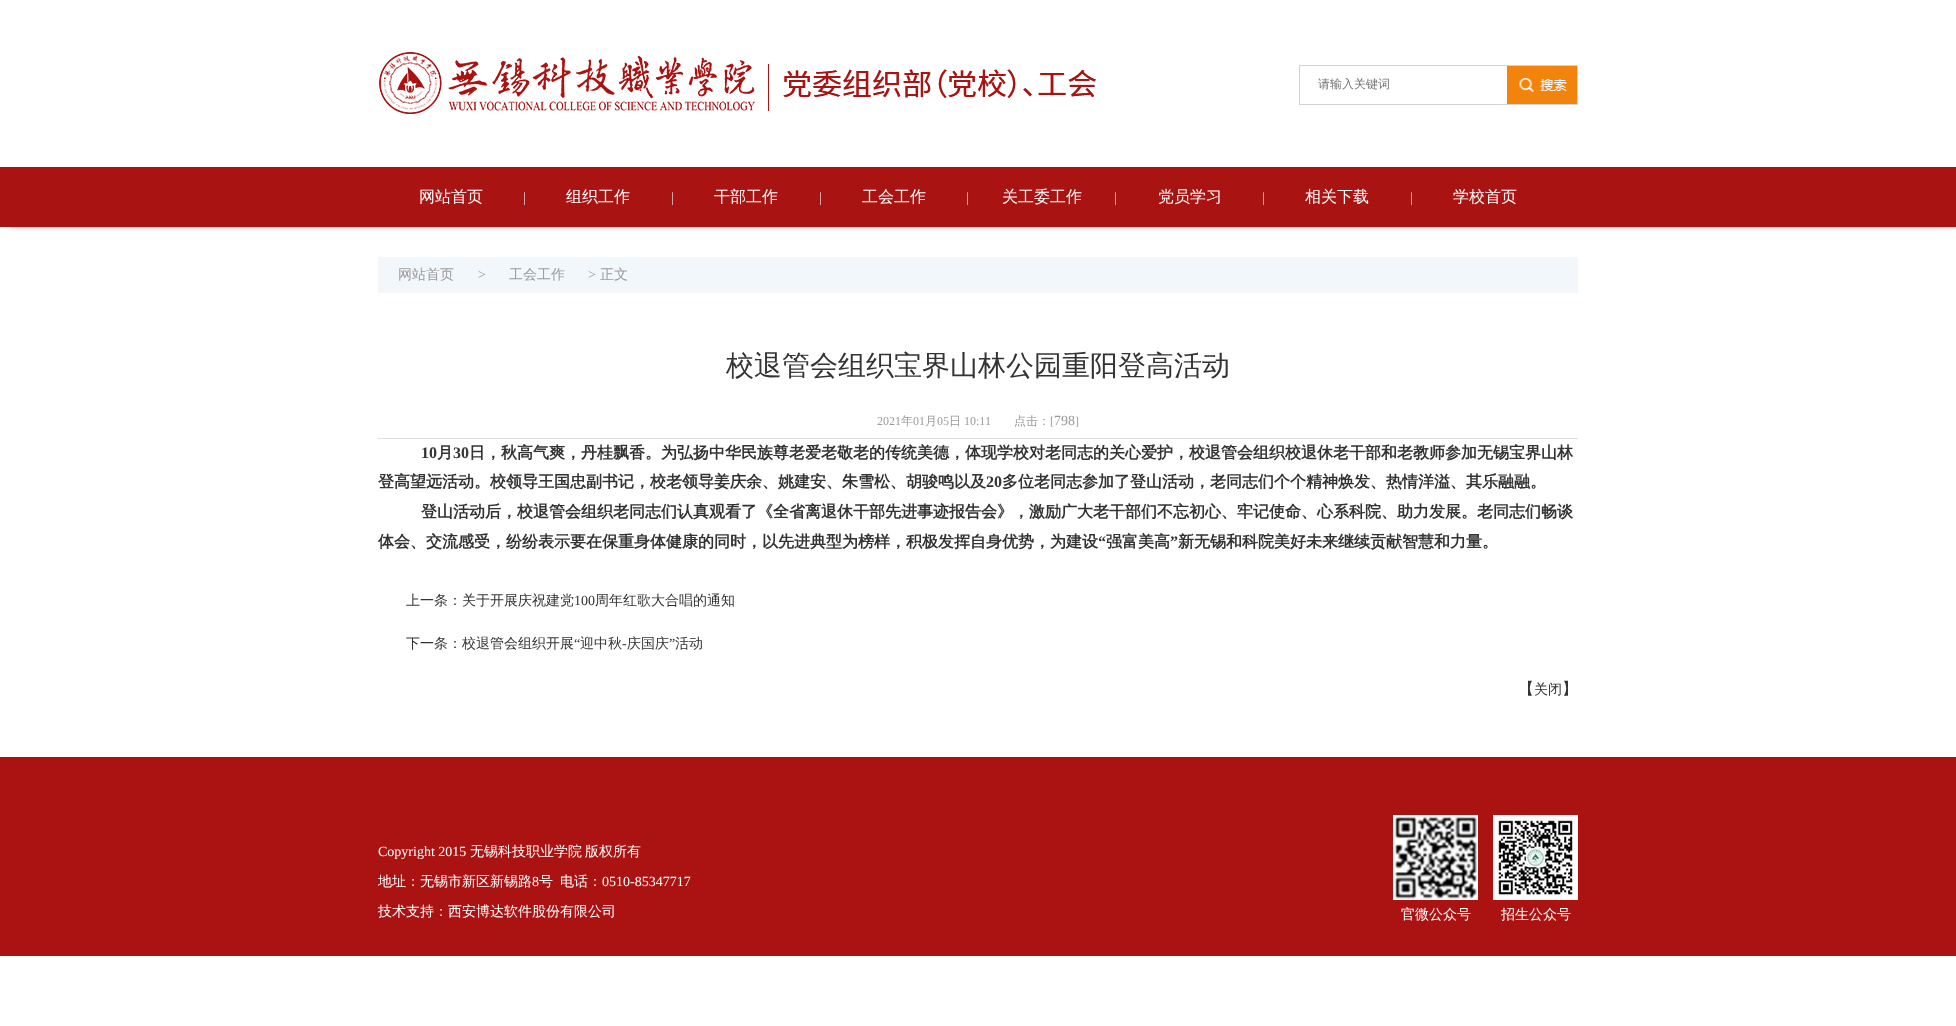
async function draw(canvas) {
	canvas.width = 1956;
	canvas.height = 1026;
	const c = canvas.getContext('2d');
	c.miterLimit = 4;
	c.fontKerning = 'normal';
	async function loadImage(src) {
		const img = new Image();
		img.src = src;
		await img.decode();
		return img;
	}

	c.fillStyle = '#fff';
	c.fillRect(0, 0, 1956, 1026);
	c.drawImage(await loadImage('img1.png'), 379, 52, 717, 62);
	c.strokeStyle = '#d3d3d3';
	c.strokeRect(1299.5, 65.5, 278, 39);
	c.font = '500 12px WenQuanYi Zen Hei';
	c.fillStyle = '#757575';
	c.fillText('请输入关键词', 1318, 88);
	c.fillStyle = '#f2830c';
	c.fillRect(1507, 66, 70, 38);
	c.drawImage(await loadImage('img2.png'), 1519, 78, 48, 14);
	c.fillStyle = '#a9a9a9';
	c.filter = 'blur(2.5px)';
	c.beginPath();
	c.rect(10, 177, 1946, 50);
	c.fill();
	c.filter = 'none';
	c.fillStyle = '#a91312';
	c.fillRect(0, 167, 1956, 60);
	c.font = '500 16px WenQuanYi Zen Hei';
	c.fillStyle = '#fff';
	c.fillText('网站首页', 419, 202);
	c.font = '14px Liberation Serif';
	c.fillStyle = '#ddd';
	c.fillText('|', 523, 202);
	c.font = '500 16px WenQuanYi Zen Hei';
	c.fillStyle = '#fff';
	c.fillText('组织工作', 566, 202);
	c.font = '14px Liberation Serif';
	c.fillStyle = '#ddd';
	c.fillText('|', 671, 202);
	c.font = '500 16px WenQuanYi Zen Hei';
	c.fillStyle = '#fff';
	c.fillText('干部工作', 714, 202);
	c.font = '14px Liberation Serif';
	c.fillStyle = '#ddd';
	c.fillText('|', 819, 202);
	c.font = '500 16px WenQuanYi Zen Hei';
	c.fillStyle = '#fff';
	c.fillText('工会工作', 862, 202);
	c.font = '14px Liberation Serif';
	c.fillStyle = '#ddd';
	c.fillText('|', 966, 202);
	c.font = '500 16px WenQuanYi Zen Hei';
	c.fillStyle = '#fff';
	c.fillText('关工委工作', 1002, 202);
	c.font = '14px Liberation Serif';
	c.fillStyle = '#ddd';
	c.fillText('|', 1114, 202);
	c.font = '500 16px WenQuanYi Zen Hei';
	c.fillStyle = '#fff';
	c.fillText('党员学习', 1158, 202);
	c.font = '14px Liberation Serif';
	c.fillStyle = '#ddd';
	c.fillText('|', 1262, 202);
	c.font = '500 16px WenQuanYi Zen Hei';
	c.fillStyle = '#fff';
	c.fillText('相关下载', 1305, 202);
	c.font = '14px Liberation Serif';
	c.fillStyle = '#ddd';
	c.fillText('|', 1410, 202);
	c.font = '500 16px WenQuanYi Zen Hei';
	c.fillStyle = '#fff';
	c.fillText('学校首页', 1453, 202);
	c.fillStyle = '#f2f7fc';
	c.fillRect(378, 257, 1200, 36);
	c.font = '500 14px WenQuanYi Zen Hei';
	c.fillStyle = '#9a9a9a';
	c.fillText('网站首页', 398, 279);
	c.font = '14px Liberation Serif';
	c.fillText('>', 478, 279);
	c.font = '500 14px WenQuanYi Zen Hei';
	c.fillText('工会工作', 509, 279);
	c.font = '14px Liberation Serif';
	c.fillText('>', 588, 279);
	c.font = '500 14px WenQuanYi Zen Hei';
	c.fillText('正文', 600, 279);
	c.font = '500 28px WenQuanYi Zen Hei';
	c.fillStyle = '#333';
	c.fillText('校退管会组织宝界山林公园重阳登高活动', 726, 375);
	c.fillStyle = '#dedede';
	c.fillRect(378, 438, 1200, 1);
	c.font = '12px Liberation Serif';
	c.fillStyle = '#9a9a9a';
	c.fillText('2021', 877, 425);
	c.font = '500 12px WenQuanYi Zen Hei';
	c.fillText('年', 901, 425);
	c.font = '12px Liberation Serif';
	c.fillText('01', 913, 425);
	c.font = '500 12px WenQuanYi Zen Hei';
	c.fillText('月', 925, 425);
	c.font = '12px Liberation Serif';
	c.fillText('05', 937, 425);
	c.font = '500 12px WenQuanYi Zen Hei';
	c.fillText('日', 949, 425);
	c.font = '12px Liberation Serif';
	c.fillText('10:11', 964, 425);
	c.font = '500 12px WenQuanYi Zen Hei';
	c.fillText('点击：', 1014, 425);
	c.font = '12px Liberation Serif';
	c.fillText('[', 1050, 425);
	c.font = '14px Liberation Serif';
	c.fillText('798', 1054, 425);
	c.font = '12px Liberation Serif';
	c.fillText(']', 1075, 425);
	c.font = 'bold 16px Liberation Serif';
	c.fillStyle = '#333';
	c.fillText('10', 421, 458);
	c.font = 'bold 16px WenQuanYi Zen Hei';
	c.fillText('月', 437, 458);
	c.font = 'bold 16px Liberation Serif';
	c.fillText('30', 453, 458);
	c.font = 'bold 16px WenQuanYi Zen Hei';
	c.fillText('日，秋高气爽，丹桂飘香。为弘扬中华民族尊老爱老敬老的传统美德，体现学校对老同志的关心爱护，校退管会组织校退休老干部和老教师参加无锡宝界山林', 469, 458);
	c.fillText('登高望远活动。校领导王国忠副书记，校老领导姜庆余、姚建安、朱雪松、胡骏鸣以及', 378, 487);
	c.font = 'bold 16px Liberation Serif';
	c.fillText('20', 986, 487);
	c.font = 'bold 16px WenQuanYi Zen Hei';
	for (const [text, x, y] of [
		['多位老同志参加了登山活动，老同志们个个精神焕发、热情洋溢、其乐融融。', 1002, 487],
		['登山活动后，校退管会组织老同志们认真观看了《全省离退休干部先进事迹报告会》，激励广大老干部们不忘初心、牢记使命、心系科院、助力发展。老同志们畅谈', 421, 517],
		['体会、交流感受，纷纷表示要在保重身体健康的同时，以先进典型为榜样，积极发挥自身优势，为建设', 378, 547],
	]) {
		c.fillText(text, x, y);
	}
	c.font = 'bold 16px Liberation Serif';
	c.fillText('“', 1098, 547);
	c.font = 'bold 16px WenQuanYi Zen Hei';
	c.fillText('强富美高', 1106, 547);
	c.font = 'bold 16px Liberation Serif';
	c.fillText('”', 1170, 547);
	c.font = 'bold 16px WenQuanYi Zen Hei';
	c.fillText('新无锡和科院美好未来继续贡献智慧和力量。', 1178, 547);
	c.font = '500 14px WenQuanYi Zen Hei';
	c.fillText('上一条：关于开展庆祝建党', 406, 605);
	c.font = '14px Liberation Serif';
	c.fillText('100', 574, 605);
	c.font = '500 14px WenQuanYi Zen Hei';
	c.fillText('周年红歌大合唱的通知', 595, 605);
	c.fillText('下一条：校退管会组织开展', 406, 648);
	c.font = '14px Liberation Serif';
	c.fillText('“', 574, 648);
	c.font = '500 14px WenQuanYi Zen Hei';
	c.fillText('迎中秋', 580, 648);
	c.fillText('庆国庆', 627, 648);
	c.font = '14px Liberation Serif';
	c.fillText('”', 669, 648);
	c.font = '500 14px WenQuanYi Zen Hei';
	c.fillText('活动', 675, 648);
	c.font = '14px Liberation Serif';
	c.fillText('-', 622, 648);
	c.font = '500 16px WenQuanYi Zen Hei';
	c.fillText('【', 1518, 694);
	c.font = '500 14px WenQuanYi Zen Hei';
	c.fillText('关闭', 1534, 694);
	c.font = '500 16px WenQuanYi Zen Hei';
	c.fillText('】', 1562, 694);
	c.fillStyle = '#aa1312';
	c.fillRect(0, 757, 1956, 199);
	c.font = '14px Liberation Serif';
	c.fillStyle = '#fff';
	c.fillText('Copyright 2015', 378, 856);
	c.font = '500 14px WenQuanYi Zen Hei';
	for (const [text, x, y] of [
		['无锡科技职业学院', 470, 856],
		['版权所有', 585, 856],
		['地址：无锡市新区新锡路', 378, 886],
	]) {
		c.fillText(text, x, y);
	}
	c.font = '14px Liberation Serif';
	c.fillText('8', 532, 886);
	c.font = '500 14px WenQuanYi Zen Hei';
	c.fillText('号', 539, 886);
	c.fillText('电话：', 560, 886);
	c.font = '14px Liberation Serif';
	c.fillText('0510-85347717', 602, 886);
	c.font = '500 14px WenQuanYi Zen Hei';
	c.fillText('技术支持：西安博达软件股份有限公司', 378, 916);
	c.drawImage(await loadImage('img3.png'), 1393, 815, 85, 85);
	c.fillText('官微公众号', 1401, 919);
	c.drawImage(await loadImage('img4.png'), 1493, 815, 85, 85);
	c.fillText('招生公众号', 1501, 919);
}

draw(document.querySelector('canvas'));
